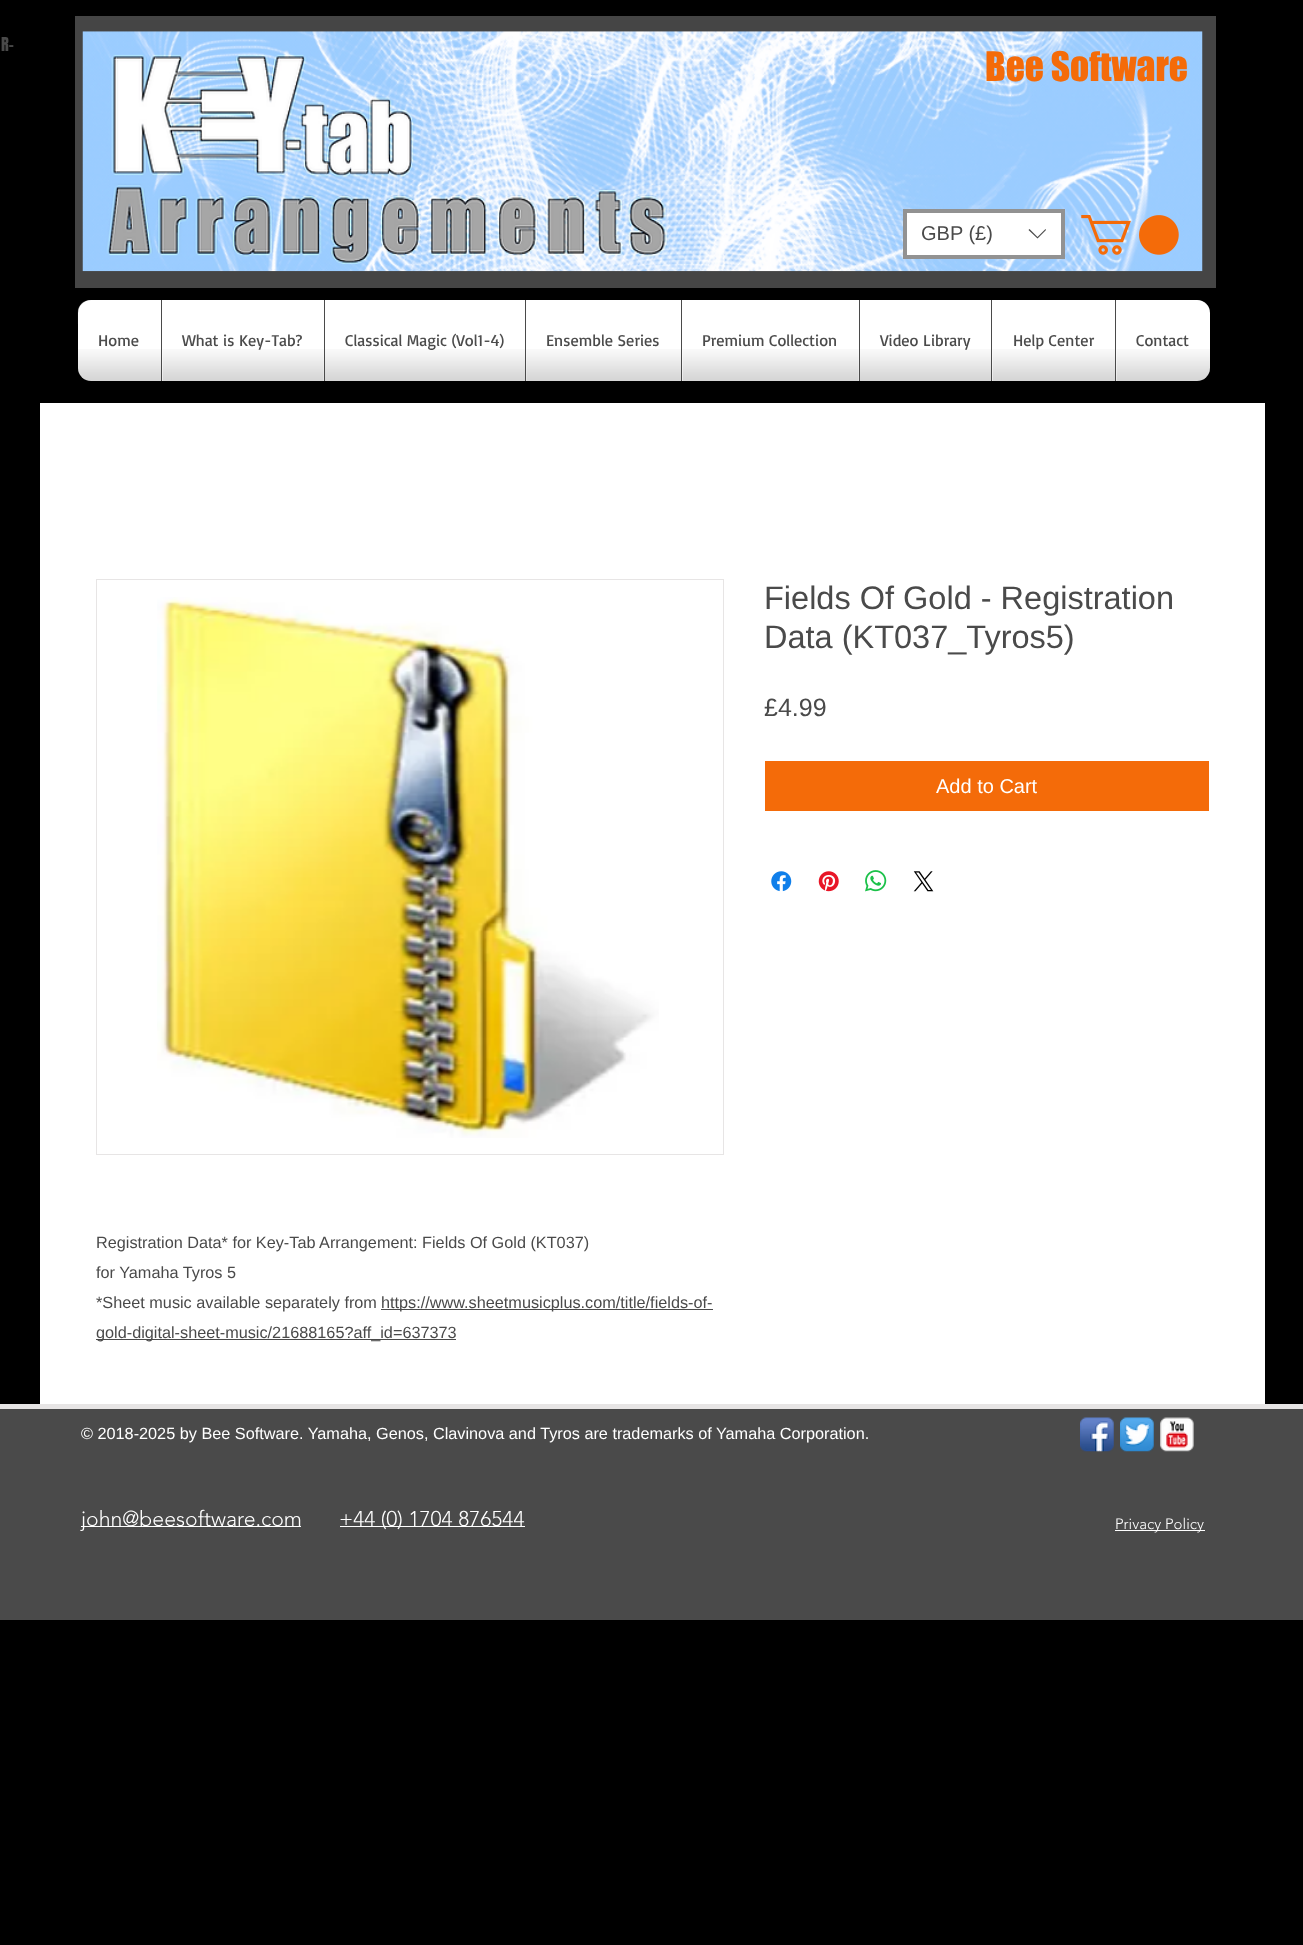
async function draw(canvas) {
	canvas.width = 1303;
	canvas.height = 1945;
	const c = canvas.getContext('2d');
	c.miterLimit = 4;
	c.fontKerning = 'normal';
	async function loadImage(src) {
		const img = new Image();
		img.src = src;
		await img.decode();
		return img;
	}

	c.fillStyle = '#000';
	c.fillRect(0, 0, 1303, 1945);
	c.font = '16.25px Anton';
	c.fillStyle = '#4a4a4a';
	c.fillText('R-', 1, 51);
	c.fillStyle = '#454545';
	c.fillRect(75, 16, 1141, 272);
	c.drawImage(await loadImage('img1.png'), 82, 31, 1121, 241);
	c.font = '37.5px "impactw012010"';
	c.fillStyle = '#f46b09';
	c.fillText('Bee Software', 985, 81);
	c.fillStyle = '#fff';
	c.beginPath();
	c.rect(905, 211, 158, 46);
	c.fill();
	c.strokeStyle = '#929292';
	c.lineWidth = 4;
	c.stroke();
	c.font = '20px Liberation Sans';
	c.fillStyle = '#4a4a4a';
	c.fillText('GBP (£)', 921, 240);
	c.beginPath();
	c.moveTo(1045.5, 229);
	c.lineTo(1046, 230);
	c.lineTo(1037.5, 238.5);
	c.lineTo(1028.5, 230);
	c.lineTo(1029.5, 229);
	c.lineTo(1037.5, 237);
	c.closePath();
	c.fill('evenodd');
	c.drawImage(await loadImage('img2.png'), 1081, 215, 98, 40);
	c.drawImage(await loadImage('img3.png'), 77, 300, 1133, 24);
	c.drawImage(await loadImage('img4.png'), 78, 368, 1132, 13);
	c.fillStyle = '#fff';
	c.beginPath();
	c.roundRect(78, 300, 83, 81, [13, 0, 0, 13]);
	c.fill();
	c.font = '16.25px Basic';
	c.fillStyle = '#4a4a4a';
	c.fillText('Home', 98, 346);
	c.drawImage(await loadImage('img5.png'), 78, 300, 60, 41);
	c.drawImage(await loadImage('img6.png'), 78, 349, 83, 32);
	c.fillStyle = '#fff';
	c.fillRect(162, 300, 162, 81);
	c.fillStyle = '#4a4a4a';
	c.fillRect(161, 300, 1, 81);
	c.fillText('What is Key-Tab?', 182, 346);
	c.drawImage(await loadImage('img7.png'), 182, 335, 120, 6);
	c.drawImage(await loadImage('img8.png'), 162, 349, 162, 32);
	c.fillStyle = '#fff';
	c.fillRect(325, 300, 200, 81);
	c.fillStyle = '#4a4a4a';
	c.fillRect(324, 300, 1, 81);
	c.fillText('Classical Magic (Vol1-4)', 345, 346);
	c.drawImage(await loadImage('img9.png'), 346, 334, 157, 7);
	c.drawImage(await loadImage('img10.png'), 325, 349, 200, 32);
	c.fillStyle = '#fff';
	c.fillRect(526, 300, 155, 81);
	c.fillStyle = '#4a4a4a';
	c.fillRect(525, 300, 1, 81);
	c.fillText('Ensemble Series', 546, 346);
	c.drawImage(await loadImage('img11.png'), 548, 335, 111, 6);
	c.drawImage(await loadImage('img12.png'), 526, 349, 155, 32);
	c.fillStyle = '#fff';
	c.fillRect(682, 300, 177, 81);
	c.fillStyle = '#4a4a4a';
	c.fillRect(681, 300, 1, 81);
	c.fillText('Premium Collection', 702, 346);
	c.drawImage(await loadImage('img13.png'), 704, 335, 132, 6);
	c.drawImage(await loadImage('img14.png'), 682, 349, 177, 32);
	c.fillStyle = '#fff';
	c.fillRect(860, 300, 131, 81);
	c.fillStyle = '#4a4a4a';
	c.fillRect(859, 300, 1, 81);
	c.fillText('Video Library', 880, 346);
	c.drawImage(await loadImage('img15.png'), 880, 335, 90, 6);
	c.drawImage(await loadImage('img16.png'), 860, 349, 131, 32);
	c.fillStyle = '#fff';
	c.fillRect(992, 300, 123, 81);
	c.fillStyle = '#4a4a4a';
	c.fillRect(991, 300, 1, 81);
	c.fillText('Help Center', 1013, 346);
	c.drawImage(await loadImage('img17.png'), 1014, 335, 79, 6);
	c.drawImage(await loadImage('img18.png'), 992, 349, 123, 32);
	c.fillStyle = '#fff';
	c.beginPath();
	c.roundRect(1115, 300, 95, 81, [0, 13, 13, 0]);
	c.fill();
	c.fillStyle = '#4a4a4a';
	c.fillRect(1115, 300, 1, 81);
	c.fillText('Contact', 1136, 346);
	c.drawImage(await loadImage('img19.png'), 1137, 300, 68, 41);
	c.drawImage(await loadImage('img20.png'), 1116, 349, 94, 32);
	c.fillStyle = '#fff';
	c.fillRect(40, 403, 1225, 1001);
	c.font = '32.5px Liberation Sans';
	c.fillStyle = '#4a4a4a';
	c.fillText('Fields Of Gold - Registration', 764, 609);
	c.fillText('Data (KT037_Tyros5)', 764, 648);
	c.font = '25px Liberation Sans';
	c.fillText('£4.99', 764, 716);
	c.fillStyle = '#f46b09';
	c.fillRect(765, 761, 444, 50);
	c.font = '20px Liberation Sans';
	c.fillStyle = '#fff';
	c.fillText('Add to Cart', 936, 793);
	c.drawImage(await loadImage('img21.png'), 771, 871, 21, 21);
	c.drawImage(await loadImage('img22.png'), 818, 871, 21, 21);
	c.drawImage(await loadImage('img23.png'), 865, 870, 22, 22);
	c.drawImage(await loadImage('img24.png'), 913, 871, 21, 21);
	c.strokeStyle = '#e7e5e5';
	c.lineWidth = 1;
	c.strokeRect(96.5, 579.5, 627, 575);
	c.drawImage(await loadImage('img25.png'), 157, 597, 502, 541);
	c.font = '16.25px Liberation Sans';
	c.fillStyle = '#4a4a4a';
	for (const [text, x, y] of [
		['Registration Data* for Key-Tab Arrangement: Fields Of Gold (KT037)', 96, 1248],
		['for Yamaha Tyros 5', 96, 1278],
		['*Sheet music available separately from', 96, 1308],
	]) {
		c.fillText(text, x, y);
	}
	c.fillRect(381, 1309, 332, 1);
	c.fillText('https://www.sheetmusicplus.com/title/fields-of-', 381, 1308);
	c.fillRect(96, 1339, 360, 1);
	c.fillText('gold-digital-sheet-music/21688165?aff_id=637373', 96, 1338);
	c.fillRect(0, 1409, 1303, 211);
	c.fillStyle = '#e7e5e5';
	c.fillRect(0, 1404, 1303, 5);
	c.fillStyle = '#fff';
	c.fillText('© 2018-2025 by Bee Software. Yamaha, Genos, Clavinova and Tyros are trademarks of Yamaha Corporation.', 81, 1439);
	c.drawImage(await loadImage('img26.png'), 1080, 1417, 34, 35);
	c.drawImage(await loadImage('img27.png'), 1120, 1417, 34, 35);
	c.drawImage(await loadImage('img28.png'), 1160, 1417, 34, 35);
	c.fillRect(81, 1526, 220, 1);
	c.font = '300 21.25px "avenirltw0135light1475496"';
	c.fillText('john@beesoftware.com', 81, 1526);
	c.fillRect(340, 1526, 185, 1);
	c.fillText('+44 (0) 1704 876544', 339, 1526);
	c.fillRect(1115, 1530, 90, 1);
	c.font = '300 15px "avenirltw0135light1475496"';
	c.fillText('Privacy Policy', 1115, 1529);
}

draw(document.querySelector('canvas'));
